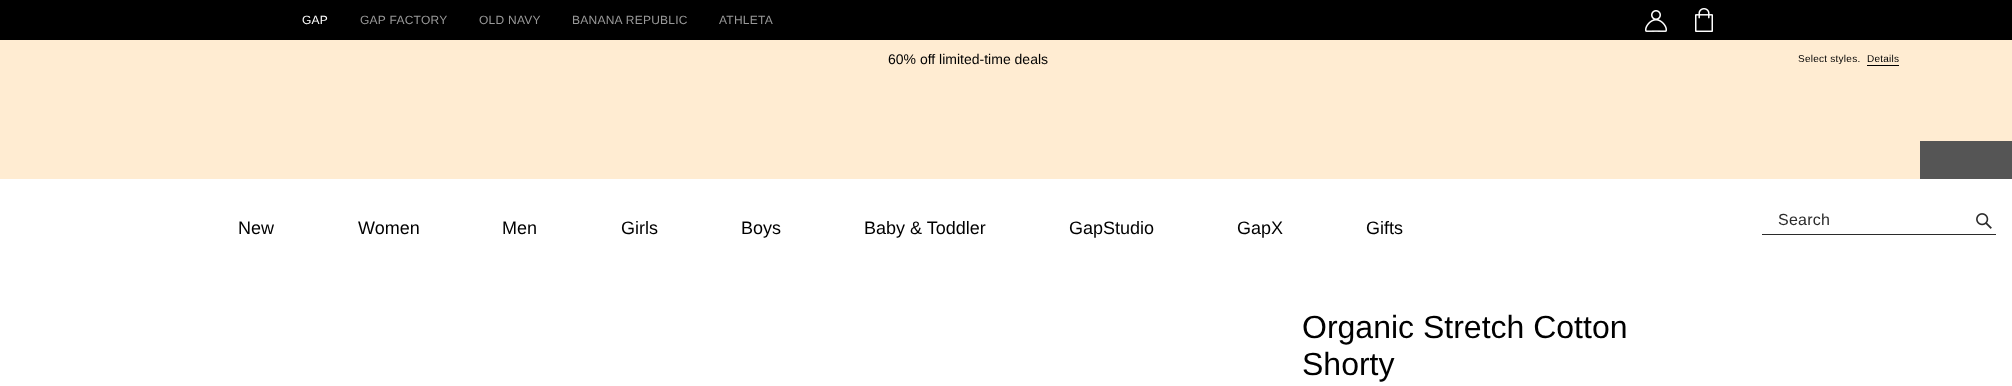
async function draw(canvas) {
	canvas.width = 2012;
	canvas.height = 386;
	const c = canvas.getContext('2d');
	c.miterLimit = 4;
	c.fontKerning = 'normal';
	async function loadImage(src) {
		const img = new Image();
		img.src = src;
		await img.decode();
		return img;
	}

	c.fillStyle = '#fff';
	c.fillRect(0, 0, 2012, 386);
	c.fillStyle = '#000';
	c.fillRect(0, 0, 2012, 40);
	c.letterSpacing = '0.25px';
	c.font = '12px Liberation Sans';
	c.fillStyle = '#fff';
	c.fillText('GAP', 302, 24);
	c.fillStyle = '#999';
	for (const [text, x, y] of [
		['GAP FACTORY', 360, 24],
		['OLD NAVY', 479, 24],
		['BANANA REPUBLIC', 572, 24],
		['ATHLETA', 719, 24],
	]) {
		c.fillText(text, x, y);
	}
	c.drawImage(await loadImage('img1.png'), 1645, 10, 22, 22);
	c.drawImage(await loadImage('img2.png'), 1695, 8, 18, 24);
	c.fillStyle = '#ffecd2';
	c.fillRect(0, 40, 2012, 139);
	c.letterSpacing = '0px';
	c.font = '14px Liberation Sans';
	c.fillStyle = '#000';
	c.fillText('60% off limited-time deals', 888, 64);
	c.letterSpacing = '0.25px';
	c.font = '10px Liberation Sans';
	c.fillText('Select styles.', 1798, 62);
	c.fillText('Details', 1867, 62);
	c.fillRect(1867, 65, 32, 1);
	c.fillStyle = '#555';
	c.fillRect(1920, 141, 92, 38);
	c.letterSpacing = '0px';
	c.font = '18px Liberation Sans';
	c.fillStyle = '#000';
	for (const [text, x, y] of [
		['New', 238, 234],
		['Women', 358, 234],
		['Men', 502, 234],
		['Girls', 621, 234],
		['Boys', 741, 234],
		['Baby & Toddler', 864, 234],
		['GapStudio', 1069, 234],
		['GapX', 1237, 234],
		['Gifts', 1366, 234],
	]) {
		c.fillText(text, x, y);
	}
	c.fillStyle = '#2b2b2b';
	c.fillRect(1762, 234, 234, 1);
	c.letterSpacing = '0.25px';
	c.font = '16px Liberation Sans';
	c.fillText('Search', 1778, 225);
	c.drawImage(await loadImage('img3.png'), 1976, 213, 16, 16);
	c.letterSpacing = '0px';
	c.font = '32px Liberation Sans';
	c.fillStyle = '#000';
	c.fillText('Organic Stretch Cotton', 1302, 338);
	c.fillText('Shorty', 1302, 375);
}

draw(document.querySelector('canvas'));
